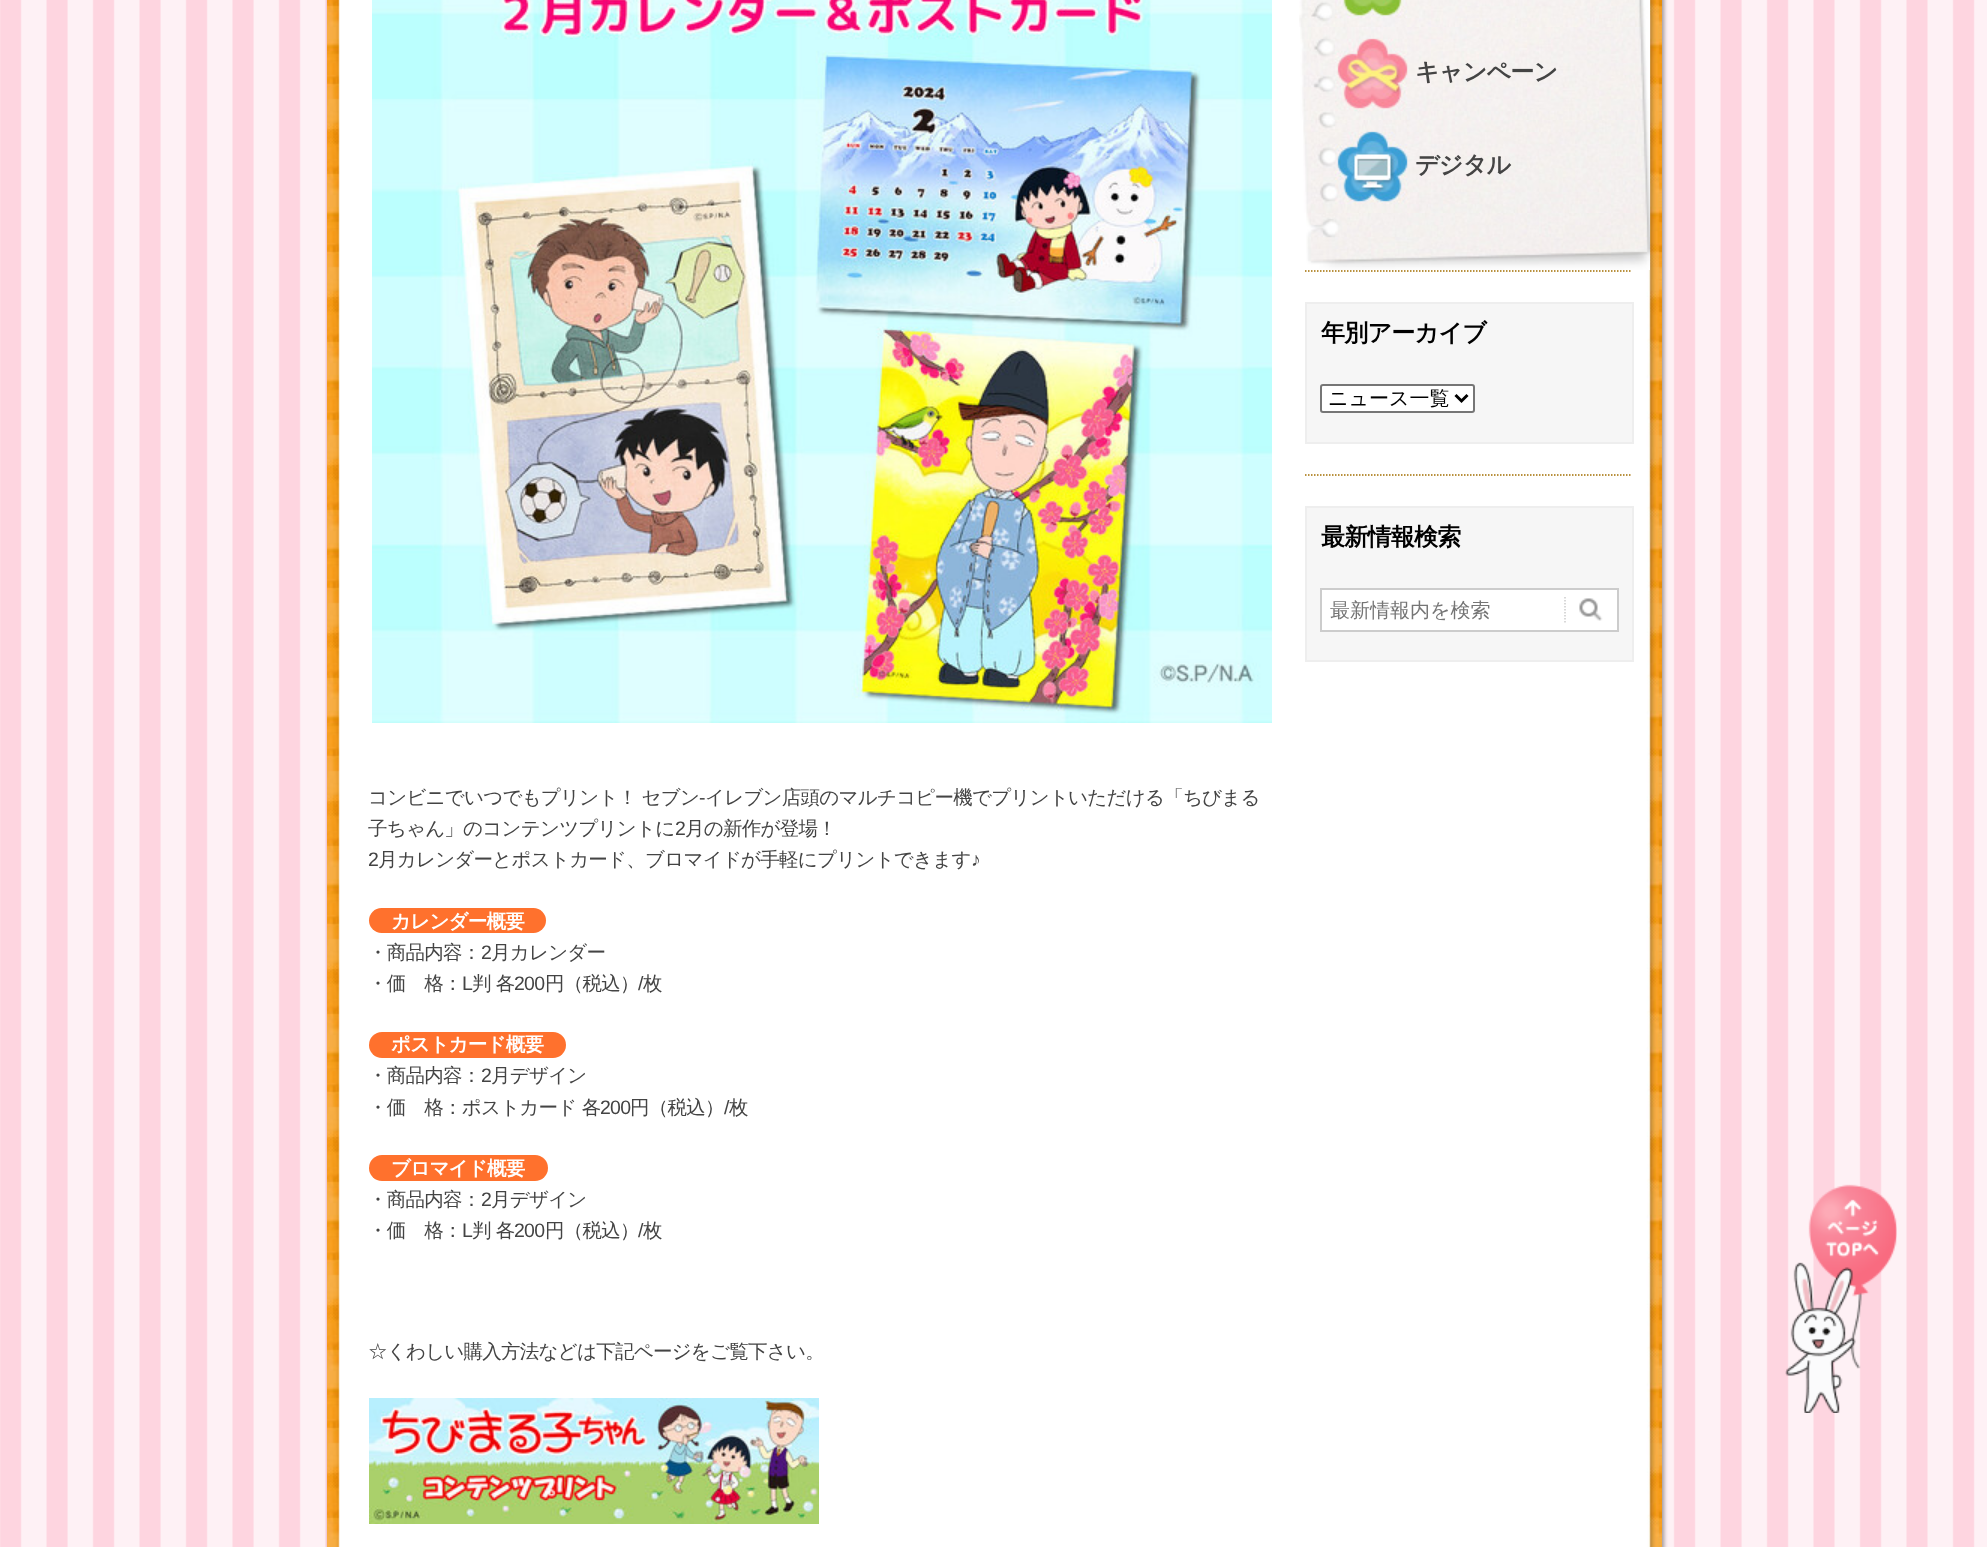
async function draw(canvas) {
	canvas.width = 1987;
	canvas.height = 1547;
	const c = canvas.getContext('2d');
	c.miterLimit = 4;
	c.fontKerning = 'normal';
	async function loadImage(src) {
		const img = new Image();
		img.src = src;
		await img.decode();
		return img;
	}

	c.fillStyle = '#fff';
	c.fillRect(0, 0, 1987, 1547);
	c.drawImage(await loadImage('img1.png'), 0, 0, 1987, 1547);
	c.fillStyle = '#00000063';
	c.filter = 'blur(2px)';
	c.beginPath();
	c.roundRect(329, -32, 1335, 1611, 26);
	c.fill();
	c.filter = 'none';
	c.drawImage(await loadImage('img2.png'), 327, 0, 1335, 1547);
	c.drawImage(await loadImage('img3.png'), 1306, 213, 344, 57);
	c.drawImage(await loadImage('img4.png'), 1299, 0, 351, 27);
	c.drawImage(await loadImage('img5.png'), 1300, 27, 350, 93);
	c.letterSpacing = '-0.75px';
	c.font = 'bold 24px WenQuanYi Zen Hei';
	c.fillStyle = '#444';
	c.fillText('キャンペーン', 1415, 80);
	c.drawImage(await loadImage('img6.png'), 1303, 120, 347, 93);
	c.fillText('デジタル', 1415, 173);
	c.beginPath();
	c.moveTo(1305, 271);
	c.lineTo(1630.5, 271);
	c.strokeStyle = '#a26e00';
	c.lineWidth = 1.5;
	c.setLineDash([1.5, 1.5]);
	c.stroke();
	c.fillStyle = '#f6f6f6';
	c.beginPath();
	c.rect(1306, 303, 327, 140);
	c.fill();
	c.strokeStyle = '#eee';
	c.lineWidth = 2;
	c.setLineDash([]);
	c.stroke();
	c.fillStyle = '#000';
	c.fillText('年別アーカイブ', 1321, 341);
	c.fillStyle = '#fff';
	c.beginPath();
	c.roundRect(1321, 385, 153, 27, 2);
	c.fill();
	c.strokeStyle = '#767676';
	c.stroke();
	c.beginPath();
	c.moveTo(1455.5, 395);
	c.lineTo(1461.5, 401);
	c.lineTo(1467.5, 395);
	c.strokeStyle = '#000';
	c.lineWidth = 3;
	c.stroke();
	c.letterSpacing = '0px';
	c.font = '500 20px WenQuanYi Zen Hei';
	c.fillStyle = '#000';
	c.fillText('ニュース一覧', 1328, 405);
	c.beginPath();
	c.moveTo(1305, 475);
	c.lineTo(1630.5, 475);
	c.strokeStyle = '#a26e00';
	c.lineWidth = 1.5;
	c.setLineDash([1.5, 1.5]);
	c.stroke();
	c.fillStyle = '#f6f6f6';
	c.beginPath();
	c.rect(1306, 507, 327, 154);
	c.fill();
	c.strokeStyle = '#eee';
	c.lineWidth = 2;
	c.setLineDash([]);
	c.stroke();
	c.letterSpacing = '-0.75px';
	c.font = 'bold 24px WenQuanYi Zen Hei';
	c.fillStyle = '#000';
	c.fillText('最新情報検索', 1321, 545);
	c.fillStyle = '#fff';
	c.beginPath();
	c.rect(1321, 589, 297, 42);
	c.fill();
	c.strokeStyle = '#ccc';
	c.stroke();
	c.letterSpacing = '0px';
	c.font = '500 20px WenQuanYi Zen Hei';
	c.fillStyle = '#757575';
	c.fillText('最新情報内を検索', 1330, 617);
	c.beginPath();
	c.moveTo(1565, 597);
	c.lineTo(1565, 622.5);
	c.lineWidth = 1.5;
	c.setLineDash([1.5, 1.5]);
	c.stroke();
	c.drawImage(await loadImage('img7.png'), 1579, 598, 24, 23);
	c.drawImage(await loadImage('img8.png'), 372, 0, 900, 723);
	c.letterSpacing = '-0.75px';
	c.font = '500 19.5px WenQuanYi Zen Hei';
	c.fillStyle = '#444';
	c.fillText('コンビニでいつでもプリント！ セブン', 368, 804);
	c.font = '19.5px Liberation Sans';
	c.fillText('‐', 699, 804);
	c.font = '500 19.5px WenQuanYi Zen Hei';
	c.fillText('イレブン店頭のマルチコピー機でプリントいただける「ちびまる', 705, 804);
	c.fillText('子ちゃん」のコンテンツプリントに', 368, 835);
	c.font = '19.5px Liberation Sans';
	c.fillText('2', 675, 835);
	c.font = '500 19.5px WenQuanYi Zen Hei';
	c.fillText('月の新作が登場！', 685, 835);
	c.font = '19.5px Liberation Sans';
	c.fillText('2', 368, 866);
	c.font = '500 19.5px WenQuanYi Zen Hei';
	c.fillText('月カレンダーとポストカード、ブロマイドが手軽にプリントできます', 378, 866);
	c.font = '19.5px Liberation Sans';
	c.fillText('♪', 971, 866);
	c.fillStyle = '#ff712d';
	c.beginPath();
	c.roundRect(369, 908, 177, 25, 12.5);
	c.fill();
	c.font = 'bold 19.5px WenQuanYi Zen Hei';
	c.fillStyle = '#fff';
	c.fillText('カレンダー概要', 391, 928);
	c.font = '500 19.5px WenQuanYi Zen Hei';
	c.fillStyle = '#444';
	c.fillText('・商品内容：', 368, 959);
	c.font = '19.5px Liberation Sans';
	c.fillText('2', 481, 959);
	c.font = '500 19.5px WenQuanYi Zen Hei';
	c.fillText('月カレンダー', 491, 959);
	c.fillText('・価　格：', 368, 990);
	c.font = '19.5px Liberation Sans';
	c.fillText('L', 462, 990);
	c.font = '500 19.5px WenQuanYi Zen Hei';
	c.fillText('判 各', 472, 990);
	c.font = '19.5px Liberation Sans';
	c.fillText('200', 514, 990);
	c.font = '500 19.5px WenQuanYi Zen Hei';
	c.fillText('円（税込）', 545, 990);
	c.font = '19.5px Liberation Sans';
	c.fillText('/', 638, 990);
	c.font = '500 19.5px WenQuanYi Zen Hei';
	c.fillText('枚', 643, 990);
	c.fillStyle = '#ff712d';
	c.beginPath();
	c.roundRect(369, 1032, 197, 26, 13);
	c.fill();
	c.font = 'bold 19.5px WenQuanYi Zen Hei';
	c.fillStyle = '#fff';
	c.fillText('ポストカード概要', 391, 1051);
	c.font = '500 19.5px WenQuanYi Zen Hei';
	c.fillStyle = '#444';
	c.fillText('・商品内容：', 368, 1082);
	c.font = '19.5px Liberation Sans';
	c.fillText('2', 481, 1082);
	c.font = '500 19.5px WenQuanYi Zen Hei';
	c.fillText('月デザイン', 491, 1082);
	c.fillText('・価　格：ポストカード 各', 368, 1114);
	c.font = '19.5px Liberation Sans';
	c.fillText('200', 600, 1114);
	c.font = '500 19.5px WenQuanYi Zen Hei';
	c.fillText('円（税込）', 630, 1114);
	c.font = '19.5px Liberation Sans';
	c.fillText('/', 724, 1114);
	c.font = '500 19.5px WenQuanYi Zen Hei';
	c.fillText('枚', 729, 1114);
	c.fillStyle = '#ff712d';
	c.beginPath();
	c.roundRect(369, 1155, 179, 26, 13);
	c.fill();
	c.font = 'bold 19.5px WenQuanYi Zen Hei';
	c.fillStyle = '#fff';
	c.fillText('ブロマイド概要', 391, 1175);
	c.font = '500 19.5px WenQuanYi Zen Hei';
	c.fillStyle = '#444';
	c.fillText('・商品内容：', 368, 1206);
	c.font = '19.5px Liberation Sans';
	c.fillText('2', 481, 1206);
	c.font = '500 19.5px WenQuanYi Zen Hei';
	c.fillText('月デザイン', 491, 1206);
	c.fillText('・価　格：', 368, 1237);
	c.font = '19.5px Liberation Sans';
	c.fillText('L', 462, 1237);
	c.font = '500 19.5px WenQuanYi Zen Hei';
	c.fillText('判 各', 472, 1237);
	c.font = '19.5px Liberation Sans';
	c.fillText('200', 514, 1237);
	c.font = '500 19.5px WenQuanYi Zen Hei';
	c.fillText('円（税込）', 545, 1237);
	c.font = '19.5px Liberation Sans';
	c.fillText('/', 638, 1237);
	c.font = '500 19.5px WenQuanYi Zen Hei';
	c.fillText('枚', 643, 1237);
	c.fillText('☆くわしい購入方法などは下記ページをご覧下さい。', 368, 1358);
	c.drawImage(await loadImage('img9.png'), 369, 1398, 450, 126);
	c.drawImage(await loadImage('img10.png'), 1785, 1184, 112, 229);
}

draw(document.querySelector('canvas'));
